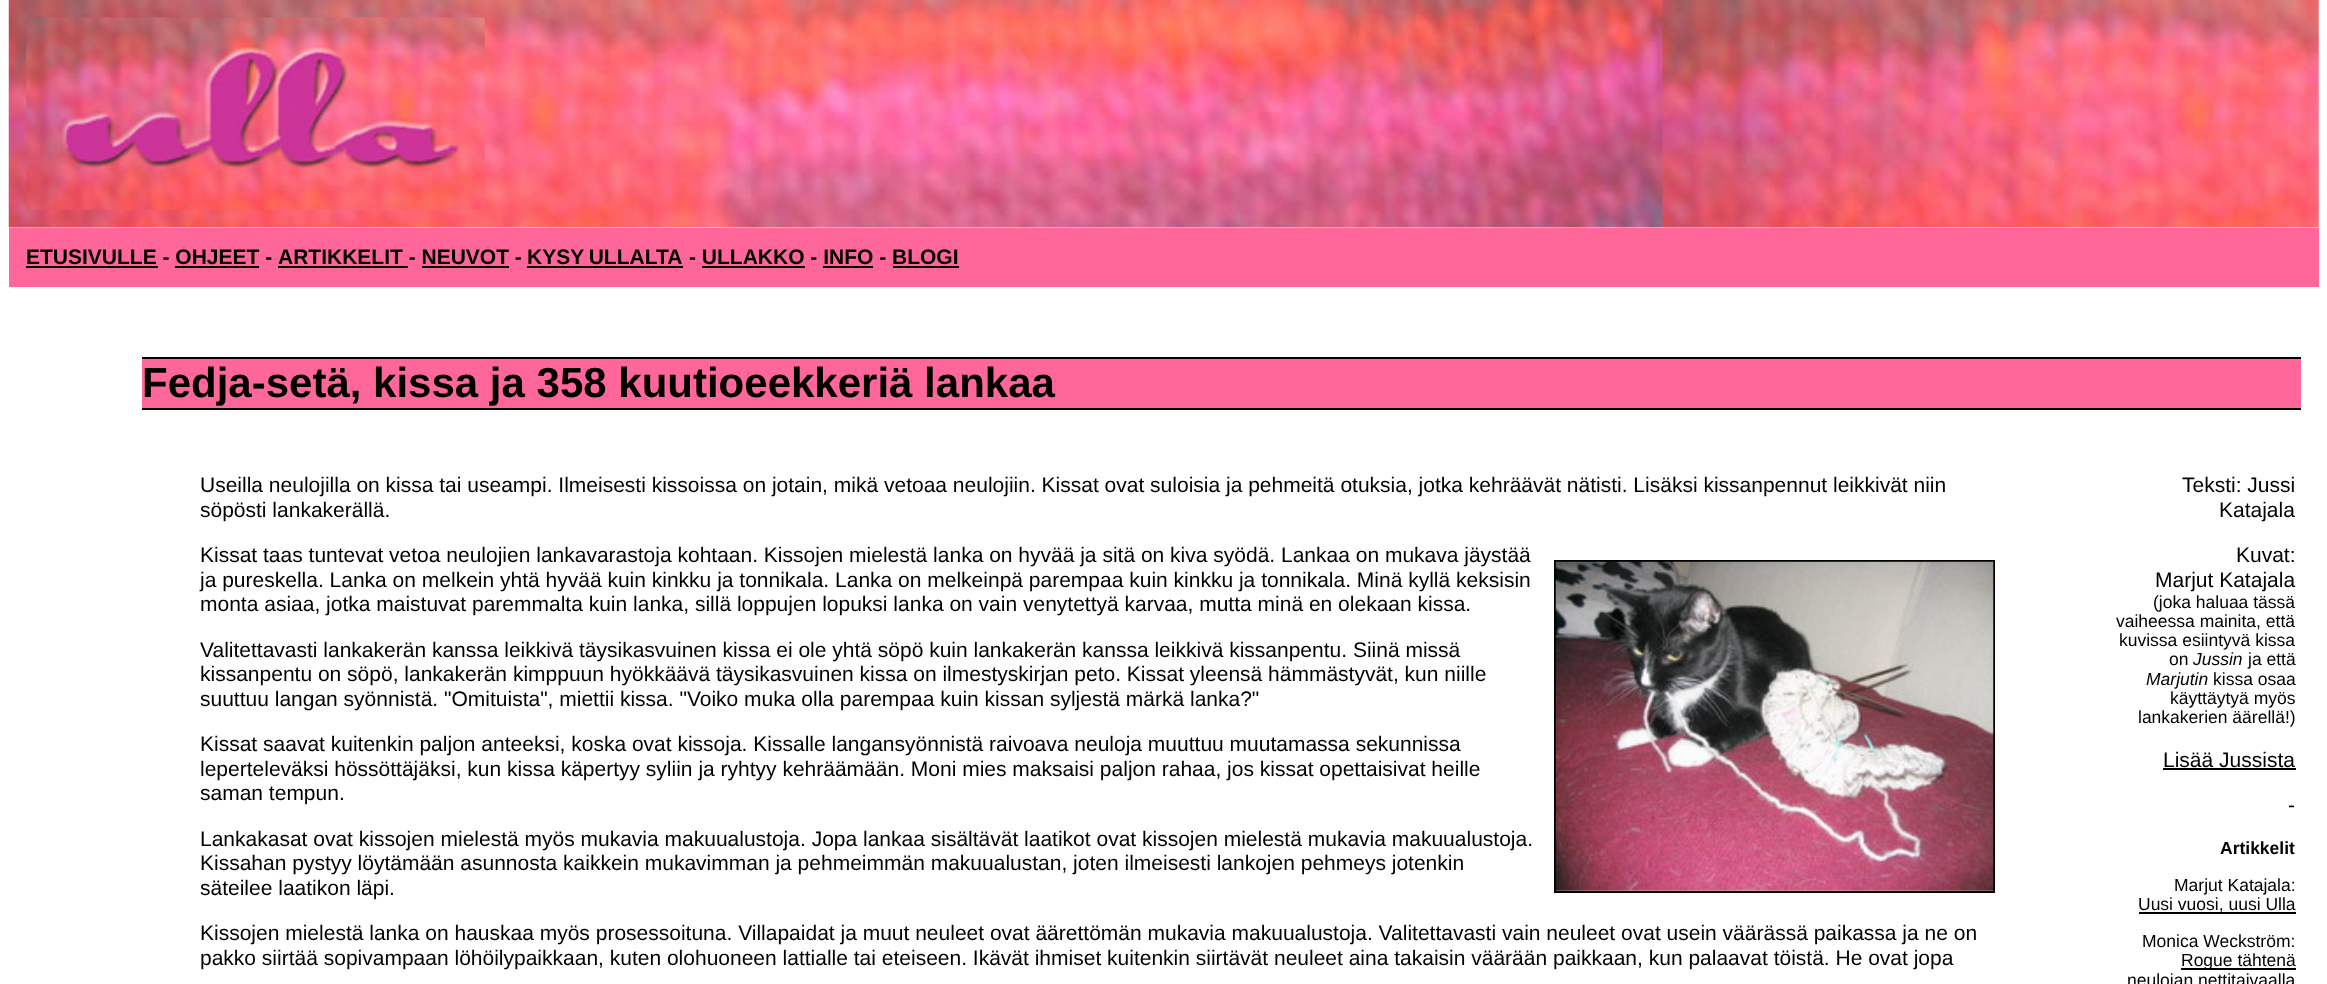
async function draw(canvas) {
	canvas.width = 2327;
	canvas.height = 984;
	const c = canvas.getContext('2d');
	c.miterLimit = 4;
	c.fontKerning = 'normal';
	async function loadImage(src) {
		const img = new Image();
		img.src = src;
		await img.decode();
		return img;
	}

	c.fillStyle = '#fff';
	c.fillRect(0, 0, 2327, 984);
	c.drawImage(await loadImage('img1.png'), 8, 0, 2311, 228);
	c.drawImage(await loadImage('img2.png'), 26, 17, 459, 193);
	c.fillStyle = '#f69';
	c.fillRect(9, 228, 2310, 59);
	c.font = 'bold 21px Liberation Sans';
	c.fillStyle = '#000';
	c.fillText('ETUSIVULLE - OHJEET -', 26, 264);
	c.fillRect(26, 266, 132, 2);
	c.fillRect(175, 266, 84, 2);
	c.fillText('ARTIKKELIT - NEUVOT -', 278, 264);
	c.fillRect(278, 266, 130, 2);
	c.fillRect(422, 266, 87, 2);
	c.wordSpacing = '-1px';
	c.fillText('KYSY ULLALTA', 527, 264);
	c.fillRect(527, 266, 156, 2);
	c.wordSpacing = '0px';
	c.fillText('- ULLAKKO - INFO - BLOGI', 689, 264);
	for (const [x, y, w, h, color] of [
		[702, 266, 103, 2, '#000'],
		[823, 266, 50, 2, '#000'],
		[893, 266, 66, 2, '#000'],
		[142, 359, 2159, 49, '#f69'],
		[142, 357, 2159, 2, '#000'],
		[142, 408, 2159, 2, '#000'],
	]) {
		c.fillStyle = color;
		c.fillRect(x, y, w, h);
	}
	c.font = 'bold 42px Liberation Sans';
	c.fillText('Fedja-setä, kissa ja 358 kuutioeekkeriä lankaa', 142, 397);
	c.font = '21px Liberation Sans';
	for (const [text, x, y] of [
		['Useilla neulojilla on kissa tai useampi. Ilmeisesti kissoissa on jotain, mikä vetoaa neulojiin. Kissat ovat suloisia ja pehmeitä otuksia, jotka kehräävät nätisti. Lisäksi kissanpennut leikkivät niin', 200, 492],
		['söpösti lankakerällä.', 200, 517],
		['Kissat taas tuntevat vetoa neulojien lankavarastoja kohtaan. Kissojen mielestä lanka on hyvää ja sitä on kiva syödä. Lankaa on mukava jäystää', 200, 562],
		['ja pureskella. Lanka on melkein yhtä hyvää kuin kinkku ja tonnikala. Lanka on melkeinpä parempaa kuin kinkku ja tonnikala. Minä kyllä keksisin', 200, 587],
	]) {
		c.fillText(text, x, y);
	}
	c.strokeStyle = '#000';
	c.lineWidth = 2;
	c.strokeRect(1555, 561, 439, 331);
	c.drawImage(await loadImage('img3.png'), 1555, 561, 439, 330);
	for (const [text, x, y] of [
		['monta asiaa, jotka maistuvat paremmalta kuin lanka, sillä loppujen lopuksi lanka on vain venytettyä karvaa, mutta minä en olekaan kissa.', 200, 611],
		['Valitettavasti lankakerän kanssa leikkivä täysikasvuinen kissa ei ole yhtä söpö kuin lankakerän kanssa leikkivä kissanpentu. Siinä missä', 200, 657],
		['kissanpentu on söpö, lankakerän kimppuun hyökkäävä täysikasvuinen kissa on ilmestyskirjan peto. Kissat yleensä hämmästyvät, kun niille', 200, 681],
		['suuttuu langan syönnistä. "Omituista", miettii kissa. "Voiko muka olla parempaa kuin kissan syljestä märkä lanka?"', 200, 706],
		['Kissat saavat kuitenkin paljon anteeksi, koska ovat kissoja. Kissalle langansyönnistä raivoava neuloja muuttuu muutamassa sekunnissa', 200, 751],
		['leperteleväksi hössöttäjäksi, kun kissa käpertyy syliin ja ryhtyy kehräämään. Moni mies maksaisi paljon rahaa, jos kissat opettaisivat heille', 200, 776],
		['saman tempun.', 200, 800],
		['Lankakasat ovat kissojen mielestä myös mukavia makuualustoja. Jopa lankaa sisältävät laatikot ovat kissojen mielestä mukavia makuualustoja.', 200, 846],
		['Kissahan pystyy löytämään asunnosta kaikkein mukavimman ja pehmeimmän makuualustan, joten ilmeisesti lankojen pehmeys jotenkin', 200, 870],
		['säteilee laatikon läpi.', 200, 895],
		['Kissojen mielestä lanka on hauskaa myös prosessoituna. Villapaidat ja muut neuleet ovat äärettömän mukavia makuualustoja. Valitettavasti vain neuleet ovat usein väärässä paikassa ja ne on', 200, 940],
		['pakko siirtää sopivampaan löhöilypaikkaan, kuten olohuoneen lattialle tai eteiseen. Ikävät ihmiset kuitenkin siirtävät neuleet aina takaisin väärään paikkaan, kun palaavat töistä. He ovat jopa', 200, 965],
		['Teksti: Jussi', 2182, 492],
		['Katajala', 2219, 517],
		['Kuvat:', 2236, 562],
		['Marjut Katajala', 2155, 587],
	]) {
		c.fillText(text, x, y);
	}
	c.font = '17.5px Liberation Sans';
	for (const [text, x, y] of [
		['(joka haluaa tässä', 2153, 608],
		['vaiheessa mainita, että', 2116, 627],
		['kuvissa esiintyvä kissa', 2119, 646],
		['on', 2169, 665],
	]) {
		c.fillText(text, x, y);
	}
	c.font = 'italic 17.5px Liberation Sans';
	c.fillText('Jussin', 2193, 665);
	c.font = '17.5px Liberation Sans';
	c.fillText('ja että', 2248, 665);
	c.font = 'italic 17.5px Liberation Sans';
	c.fillText('Marjutin', 2146, 685);
	c.font = '17.5px Liberation Sans';
	for (const [text, x, y] of [
		['kissa osaa', 2213, 685],
		['käyttäytyä myös', 2170, 704],
		['lankakerien äärellä!)', 2138, 723],
	]) {
		c.fillText(text, x, y);
	}
	c.font = '21px Liberation Sans';
	c.fillText('Lisää Jussista', 2163, 767);
	c.fillRect(2163, 768, 133, 2);
	c.fillText('-', 2288, 812);
	c.font = 'bold 17.5px Liberation Sans';
	c.fillText('Artikkelit', 2220, 854);
	c.font = '17.5px Liberation Sans';
	c.fillText('Marjut Katajala:', 2174, 891);
	c.fillRect(2139, 912, 157, 2);
	c.fillText('Uusi vuosi, uusi Ulla', 2138, 910);
	c.fillText('Monica Weckström:', 2142, 947);
	c.fillRect(2181, 968, 115, 2);
	c.fillText('Rogue tähtenä', 2181, 966);
	c.fillText('neulojan nettitaivaalla', 2127, 986);
}

draw(document.querySelector('canvas'));
